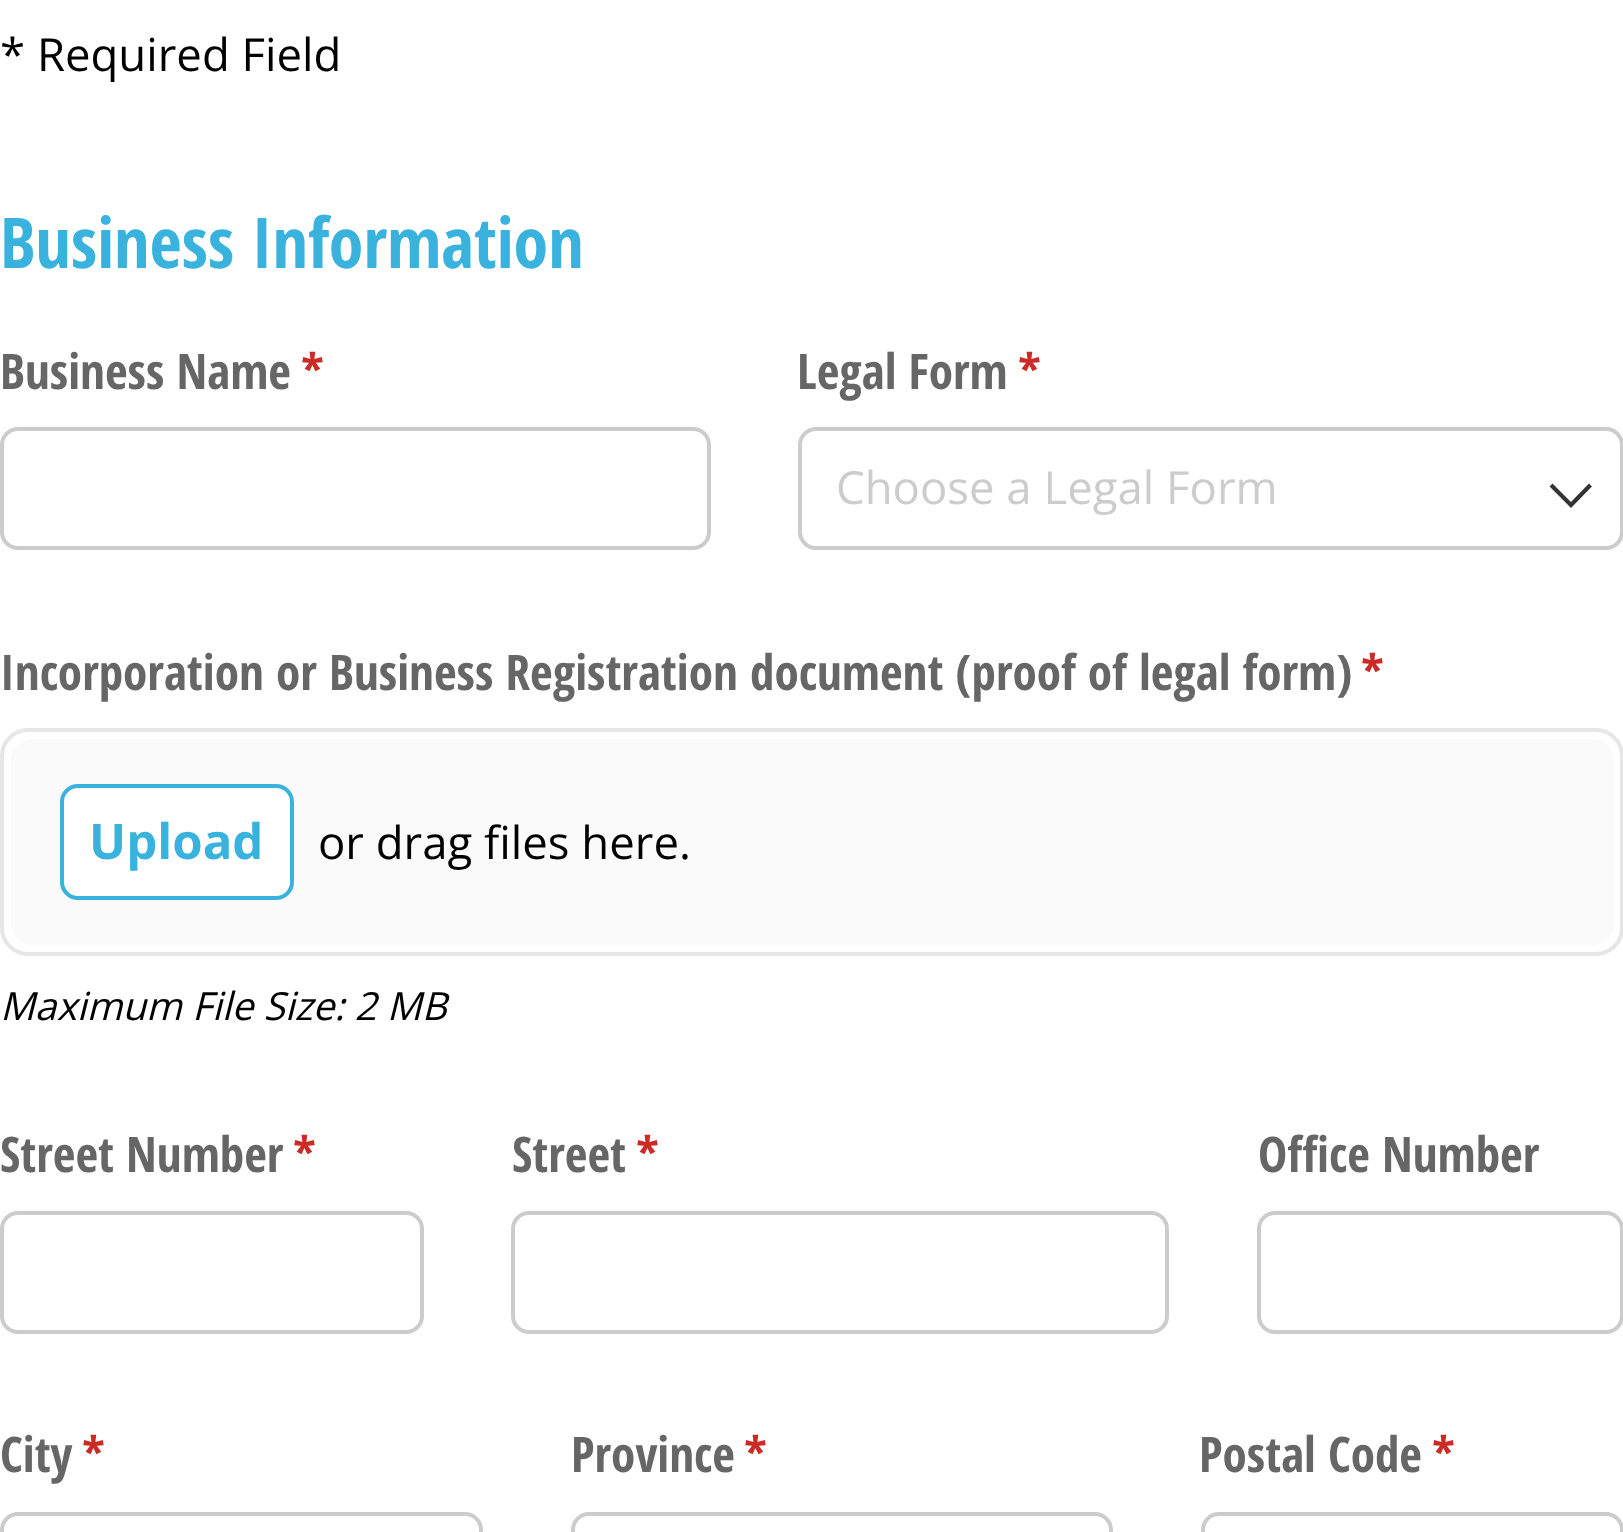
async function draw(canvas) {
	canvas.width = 1623;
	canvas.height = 1532;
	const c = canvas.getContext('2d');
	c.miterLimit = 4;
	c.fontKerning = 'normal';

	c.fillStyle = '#fff';
	c.fillRect(0, 0, 1623, 1532);
	c.font = '45.5px Open Sans';
	c.fillStyle = '#000';
	c.fillText('* Required Field', 0, 71);
	c.font = 'bold 70px Open Sans Condensed';
	c.fillStyle = '#39b2de';
	c.fillText('Business Information', 0, 268);
	c.font = 'bold 49.15px Open Sans Condensed';
	c.fillStyle = '#666';
	c.fillText('Business Name', 0, 389);
	c.fillStyle = '#cc2a24';
	c.fillText('*', 301, 389);
	c.beginPath();
	c.roundRect(2, 429, 707, 119, 16);
	c.strokeStyle = '#ccc';
	c.lineWidth = 4;
	c.stroke();
	c.fillStyle = '#666';
	c.fillText('Legal Form', 797, 389);
	c.fillStyle = '#cc2a24';
	c.fillText('*', 1018, 389);
	c.beginPath();
	c.roundRect(800, 429, 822, 119, 16);
	c.stroke();
	c.font = '45.5px Open Sans';
	c.fillStyle = '#ccc';
	c.fillText('Choose a Legal Form', 836, 504);
	c.beginPath();
	c.moveTo(1552.5, 486.5);
	c.lineTo(1571, 505);
	c.lineTo(1589, 486.5);
	c.strokeStyle = '#333';
	c.lineWidth = 4.1;
	c.lineCap = 'square';
	c.stroke();
	c.font = 'bold 49.15px Open Sans Condensed';
	c.fillStyle = '#666';
	c.fillText('Incorporation or Business Registration document (proof of legal form)', 0, 690);
	c.fillStyle = '#cc2a24';
	c.fillText('*', 1361, 690);
	c.beginPath();
	c.roundRect(2, 730, 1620, 224, 26);
	c.strokeStyle = '#e6e6e6';
	c.lineWidth = 4;
	c.stroke();
	c.fillStyle = '#fafafa';
	c.beginPath();
	c.roundRect(11, 739, 1603, 206, 21);
	c.fill();
	c.fillStyle = '#fff';
	c.beginPath();
	c.roundRect(62, 786, 230, 112, 16);
	c.fill();
	c.strokeStyle = '#39b2de';
	c.stroke();
	c.font = 'bold 49.15px Open Sans';
	c.fillStyle = '#39b2de';
	c.fillText('Upload', 89, 859);
	c.font = '45.5px Open Sans';
	c.fillStyle = '#000';
	c.fillText('or drag files here.', 318, 859);
	c.font = 'italic 38.75px Open Sans';
	c.fillText('Maximum File Size: 2 MB', 0, 1020);
	c.font = 'bold 49.15px Open Sans Condensed';
	c.fillStyle = '#666';
	c.fillText('Street Number', 0, 1172);
	c.fillStyle = '#cc2a24';
	c.fillText('*', 293, 1172);
	c.beginPath();
	c.roundRect(2, 1213, 420, 119, 16);
	c.strokeStyle = '#ccc';
	c.stroke();
	c.fillStyle = '#666';
	c.fillText('Street', 512, 1172);
	c.fillStyle = '#cc2a24';
	c.fillText('*', 636, 1172);
	c.beginPath();
	c.roundRect(513, 1213, 654, 119, 16);
	c.stroke();
	c.fillStyle = '#666';
	c.fillText('Office Number', 1258, 1172);
	c.beginPath();
	c.roundRect(1259, 1213, 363, 119, 16);
	c.stroke();
	c.fillText('City', 0, 1472);
	c.fillStyle = '#cc2a24';
	c.fillText('*', 82, 1472);
	c.beginPath();
	c.roundRect(2, 1514, 479, 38, 16);
	c.stroke();
	c.fillStyle = '#666';
	c.fillText('Province', 571, 1472);
	c.fillStyle = '#cc2a24';
	c.fillText('*', 744, 1472);
	c.beginPath();
	c.roundRect(573, 1514, 538, 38, 16);
	c.stroke();
	c.fillStyle = '#666';
	c.fillText('Postal Code', 1199, 1472);
	c.fillStyle = '#cc2a24';
	c.fillText('*', 1432, 1472);
	c.beginPath();
	c.roundRect(1203, 1514, 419, 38, 16);
	c.stroke();
}

draw(document.querySelector('canvas'));
